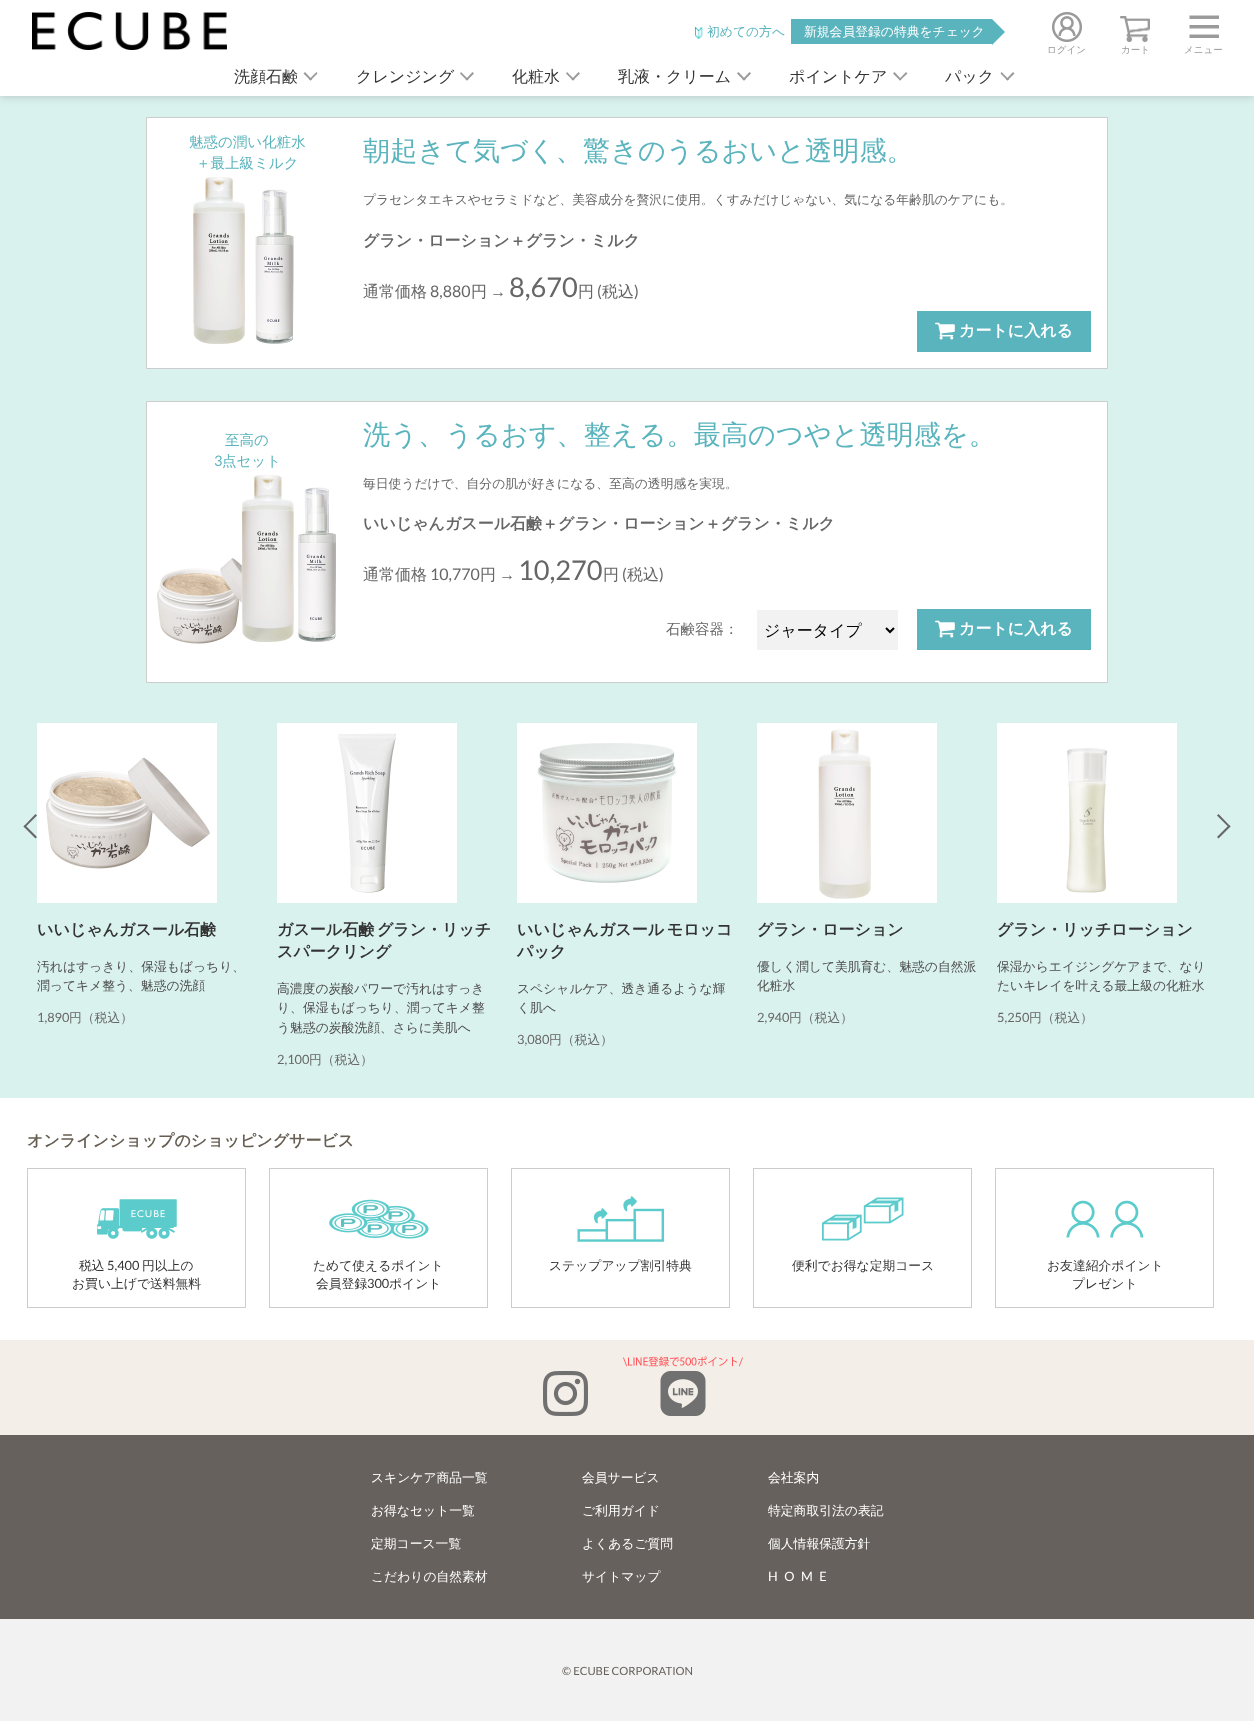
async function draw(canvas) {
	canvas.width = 1254;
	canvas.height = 1721;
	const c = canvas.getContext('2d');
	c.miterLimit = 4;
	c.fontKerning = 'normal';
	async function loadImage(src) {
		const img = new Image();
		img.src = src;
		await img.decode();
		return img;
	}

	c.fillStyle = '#fff';
	c.fillRect(0, 0, 1254, 1721);
	c.fillStyle = '#daf2ee';
	c.fillRect(0, 96, 1254, 1002);
	c.fillStyle = '#00000033';
	c.filter = 'blur(5px)';
	c.beginPath();
	c.rect(0, -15, 1254, 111);
	c.fill();
	c.filter = 'none';
	c.fillStyle = '#fff';
	c.fillRect(0, 0, 1254, 96);
	c.drawImage(await loadImage('img1.png'), 32, 12, 195, 38);
	c.drawImage(await loadImage('img2.png'), 695, 27, 8, 13);
	c.font = '500 12.8px WenQuanYi Zen Hei';
	c.fillStyle = '#5ab4bd';
	c.fillText('初めての方へ', 707, 36);
	c.fillRect(791, 19, 201, 25);
	c.fillStyle = '#fff';
	c.fillText('新規会員登録の特典をチェック', 804, 36);
	c.fillStyle = '#5ab4bd';
	c.beginPath();
	c.moveTo(992, 45);
	c.lineTo(992, 19);
	c.lineTo(1005, 32);
	c.closePath();
	c.fill();
	c.drawImage(await loadImage('img3.png'), 1052, 12, 30, 30);
	c.font = '500 9.5px WenQuanYi Zen Hei';
	c.fillStyle = '#999';
	c.fillText('ログイン', 1047, 53);
	c.drawImage(await loadImage('img4.png'), 1120, 16, 30, 26);
	c.fillText('カート', 1121, 53);
	c.drawImage(await loadImage('img5.png'), 1189, 15, 30, 23);
	c.fillText('メニュー', 1184, 53);
	c.font = '500 16px WenQuanYi Zen Hei';
	c.fillStyle = '#333';
	c.fillText('洗顔石鹸', 234, 82);
	c.fillStyle = '#999';
	c.beginPath();
	c.moveTo(316.5, 72);
	c.lineTo(317.5, 73.5);
	c.lineTo(310.5, 80.5);
	c.lineTo(309, 79.5);
	c.closePath();
	c.fill();
	c.beginPath();
	c.moveTo(305, 72);
	c.lineTo(312, 79.5);
	c.lineTo(310.5, 80.5);
	c.lineTo(303.5, 73.5);
	c.closePath();
	c.fill();
	c.fillStyle = '#333';
	c.fillText('クレンジング', 356, 82);
	c.fillStyle = '#999';
	c.beginPath();
	c.moveTo(472.5, 72);
	c.lineTo(474, 73.5);
	c.lineTo(467, 80.5);
	c.lineTo(465.5, 79.5);
	c.closePath();
	c.fill();
	c.beginPath();
	c.moveTo(461, 72);
	c.lineTo(468.5, 79.5);
	c.lineTo(467, 80.5);
	c.lineTo(460, 73.5);
	c.closePath();
	c.fill();
	c.fillStyle = '#333';
	c.fillText('化粧水', 512, 82);
	c.fillStyle = '#999';
	c.beginPath();
	c.moveTo(578.5, 72);
	c.lineTo(580, 73.5);
	c.lineTo(573, 80.5);
	c.lineTo(571.5, 79.5);
	c.closePath();
	c.fill();
	c.beginPath();
	c.moveTo(567, 72);
	c.lineTo(574.5, 79.5);
	c.lineTo(573, 80.5);
	c.lineTo(566, 73.5);
	c.closePath();
	c.fill();
	c.fillStyle = '#333';
	c.fillText('乳液・クリーム', 618, 82);
	c.fillStyle = '#999';
	c.beginPath();
	c.moveTo(749.5, 72);
	c.lineTo(751, 73.5);
	c.lineTo(744, 80.5);
	c.lineTo(742.5, 79.5);
	c.closePath();
	c.fill();
	c.beginPath();
	c.moveTo(738.5, 72);
	c.lineTo(745.5, 79.5);
	c.lineTo(744, 80.5);
	c.lineTo(737, 73.5);
	c.closePath();
	c.fill();
	c.fillStyle = '#333';
	c.fillText('ポイントケア', 789, 82);
	c.fillStyle = '#999';
	c.beginPath();
	c.moveTo(906, 72);
	c.lineTo(907.5, 73.5);
	c.lineTo(900, 80.5);
	c.lineTo(899, 79.5);
	c.closePath();
	c.fill();
	c.beginPath();
	c.moveTo(894.5, 72);
	c.lineTo(901.5, 79.5);
	c.lineTo(900, 80.5);
	c.lineTo(893, 73.5);
	c.closePath();
	c.fill();
	c.fillStyle = '#333';
	c.fillText('パック', 945, 82);
	c.fillStyle = '#999';
	c.beginPath();
	c.moveTo(1013, 72);
	c.lineTo(1014.5, 73.5);
	c.lineTo(1007.5, 80.5);
	c.lineTo(1006, 79.5);
	c.closePath();
	c.fill();
	c.beginPath();
	c.moveTo(1001.5, 72);
	c.lineTo(1009, 79.5);
	c.lineTo(1007.5, 80.5);
	c.lineTo(1000.5, 73.5);
	c.closePath();
	c.fill();
	c.fillStyle = '#fff';
	c.beginPath();
	c.rect(146.5, 117.5, 961, 251);
	c.fill();
	c.strokeStyle = '#ccc';
	c.stroke();
	c.font = '500 14.5px WenQuanYi Zen Hei';
	c.fillStyle = '#5ab4bd';
	c.fillText('魅惑の潤い化粧水', 189, 147);
	c.fillText('＋最上級ミルク', 196, 168);
	c.drawImage(await loadImage('img6.png'), 193, 177, 101, 168);
	c.font = '500 27.2px WenQuanYi Zen Hei';
	c.fillText('朝起きて気づく、驚きのうるおいと透明感。', 363, 160);
	c.font = '500 12.8px WenQuanYi Zen Hei';
	c.fillStyle = '#666';
	c.fillText('プラセンタエキスやセラミドなど、美容成分を贅沢に使用。くすみだけじゃない、気になる年齢肌のケアにも。', 363, 204);
	c.font = 'bold 16px WenQuanYi Zen Hei';
	c.fillText('グラン・ローション＋グラン・ミルク', 363, 246);
	c.font = '500 16px WenQuanYi Zen Hei';
	c.fillText('通常価格', 363, 297);
	c.font = '16px Lato';
	c.fillText('8,880', 430, 297);
	c.font = '500 16px WenQuanYi Zen Hei';
	c.fillText('円', 471, 297);
	c.font = '16px Liberation Sans';
	c.fillText('→', 490, 297);
	c.font = '27.2px Lato';
	c.fillText('8,670', 509, 297);
	c.font = '500 16px WenQuanYi Zen Hei';
	c.fillText('円', 578, 297);
	c.font = '16px Lato';
	c.fillText('(', 597, 297);
	c.font = '500 16px WenQuanYi Zen Hei';
	c.fillText('税込', 602, 297);
	c.font = '16px Lato';
	c.fillText(')', 634, 297);
	c.fillStyle = '#5ab4bd';
	c.fillRect(917, 311, 174, 41);
	c.drawImage(await loadImage('img7.png'), 935, 322, 20, 18);
	c.font = 'bold 16px WenQuanYi Zen Hei';
	c.fillStyle = '#fff';
	c.fillText('カートに入れる', 959, 336);
	c.beginPath();
	c.rect(146.5, 401.5, 961, 281);
	c.fill();
	c.stroke();
	c.font = '500 14.5px WenQuanYi Zen Hei';
	c.fillStyle = '#5ab4bd';
	c.fillText('至高の', 225, 445);
	c.font = '14.5px Lato';
	c.fillText('3', 214, 466);
	c.font = '500 14.5px WenQuanYi Zen Hei';
	c.fillText('点セット', 222, 466);
	c.drawImage(await loadImage('img8.png'), 157, 475, 179, 169);
	c.font = '500 27.2px WenQuanYi Zen Hei';
	c.fillText('洗う、うるおす、整える。最高のつやと透明感を。', 363, 444);
	c.font = '500 12.8px WenQuanYi Zen Hei';
	c.fillStyle = '#666';
	c.fillText('毎日使うだけで、自分の肌が好きになる、至高の透明感を実現。', 363, 488);
	c.font = 'bold 16px WenQuanYi Zen Hei';
	c.fillText('いいじゃんガスール石鹸＋グラン・ローション＋グラン・ミルク', 363, 529);
	c.font = '500 16px WenQuanYi Zen Hei';
	c.fillText('通常価格', 363, 580);
	c.font = '16px Lato';
	c.fillText('10,770', 430, 580);
	c.font = '500 16px WenQuanYi Zen Hei';
	c.fillText('円', 480, 580);
	c.font = '16px Liberation Sans';
	c.fillText('→', 499, 580);
	c.font = '27.2px Lato';
	c.fillText('10,270', 518, 580);
	c.font = '500 16px WenQuanYi Zen Hei';
	c.fillText('円', 603, 580);
	c.font = '16px Lato';
	c.fillText('(', 622, 580);
	c.font = '500 16px WenQuanYi Zen Hei';
	c.fillText('税込', 627, 580);
	c.font = '16px Lato';
	c.fillText(')', 659, 580);
	c.font = '500 14.5px WenQuanYi Zen Hei';
	c.fillText('石鹸容器：', 666, 634);
	c.fillStyle = '#f2f2f2';
	c.fillRect(757, 610, 141, 40);
	c.beginPath();
	c.moveTo(886, 628);
	c.lineTo(890, 632);
	c.lineTo(894, 628);
	c.strokeStyle = '#000';
	c.lineWidth = 2;
	c.stroke();
	c.font = '500 16px WenQuanYi Zen Hei';
	c.fillStyle = '#000';
	c.fillText('ジャータイプ', 764, 636);
	c.fillStyle = '#5ab4bd';
	c.fillRect(917, 609, 174, 41);
	c.drawImage(await loadImage('img7.png'), 935, 620, 20, 18);
	c.font = 'bold 16px WenQuanYi Zen Hei';
	c.fillStyle = '#fff';
	c.fillText('カートに入れる', 959, 634);
	c.fillStyle = '#666';
	c.beginPath();
	c.moveTo(35.5, 838.5);
	c.lineTo(23.5, 826.5);
	c.lineTo(25, 825);
	c.lineTo(37, 837);
	c.closePath();
	c.fill();
	c.beginPath();
	c.moveTo(25, 827.5);
	c.lineTo(23.5, 826.5);
	c.lineTo(35.5, 814);
	c.lineTo(37, 815.5);
	c.closePath();
	c.fill();
	c.beginPath();
	c.moveTo(1218.5, 814);
	c.lineTo(1230.5, 826.5);
	c.lineTo(1229, 827.5);
	c.lineTo(1217, 815.5);
	c.closePath();
	c.fill();
	c.beginPath();
	c.moveTo(1229, 825);
	c.lineTo(1230.5, 826.5);
	c.lineTo(1218.5, 838.5);
	c.lineTo(1217, 837);
	c.closePath();
	c.fill();
	c.drawImage(await loadImage('img9.png'), 37, 723, 180, 180);
	c.fillStyle = '#333';
	c.fillText('いいじゃんガスール石鹸', 37, 935);
	c.font = '500 12.8px WenQuanYi Zen Hei';
	c.fillStyle = '#4d4d4d';
	c.fillText('汚れはすっきり、保湿もばっちり、', 37, 971);
	c.fillText('潤ってキメ整う、魅惑の洗顔', 37, 990);
	c.font = '12.8px Lato';
	c.fillStyle = '#666';
	c.fillText('1,890', 37, 1022);
	c.font = '500 12.8px WenQuanYi Zen Hei';
	c.fillText('円（税込）', 69, 1022);
	c.drawImage(await loadImage('img10.png'), 277, 723, 180, 180);
	c.wordSpacing = '-2px';
	c.font = 'bold 16px WenQuanYi Zen Hei';
	c.fillStyle = '#333';
	c.fillText('ガスール石鹸 グラン・リッチ', 277, 935);
	c.wordSpacing = '0px';
	c.fillText('スパークリング', 277, 957);
	c.font = '500 12.8px WenQuanYi Zen Hei';
	c.fillStyle = '#4d4d4d';
	for (const [text, x, y] of [
		['高濃度の炭酸パワーで汚れはすっき', 277, 993],
		['り、保湿もばっちり、潤ってキメ整', 277, 1012],
		['う魅惑の炭酸洗顔、さらに美肌へ', 277, 1032],
	]) {
		c.fillText(text, x, y);
	}
	c.font = '12.8px Lato';
	c.fillStyle = '#666';
	c.fillText('2,100', 277, 1064);
	c.font = '500 12.8px WenQuanYi Zen Hei';
	c.fillText('円（税込）', 309, 1064);
	c.drawImage(await loadImage('img11.png'), 517, 723, 180, 180);
	c.wordSpacing = '-2px';
	c.font = 'bold 16px WenQuanYi Zen Hei';
	c.fillStyle = '#333';
	c.fillText('いいじゃんガスール モロッコ', 517, 935);
	c.wordSpacing = '0px';
	c.fillText('パック', 517, 957);
	c.font = '500 12.8px WenQuanYi Zen Hei';
	c.fillStyle = '#4d4d4d';
	c.fillText('スペシャルケア、透き通るような輝', 517, 993);
	c.fillText('く肌へ', 517, 1012);
	c.font = '12.8px Lato';
	c.fillStyle = '#666';
	c.fillText('3,080', 517, 1044);
	c.font = '500 12.8px WenQuanYi Zen Hei';
	c.fillText('円（税込）', 549, 1044);
	c.drawImage(await loadImage('img12.png'), 757, 723, 180, 180);
	c.font = 'bold 16px WenQuanYi Zen Hei';
	c.fillStyle = '#333';
	c.fillText('グラン・ローション', 757, 935);
	c.font = '500 12.8px WenQuanYi Zen Hei';
	c.fillStyle = '#4d4d4d';
	c.fillText('優しく潤して美肌育む、魅惑の自然派', 757, 971);
	c.fillText('化粧水', 757, 990);
	c.font = '12.8px Lato';
	c.fillStyle = '#666';
	c.fillText('2,940', 757, 1022);
	c.font = '500 12.8px WenQuanYi Zen Hei';
	c.fillText('円（税込）', 789, 1022);
	c.drawImage(await loadImage('img13.png'), 997, 723, 180, 180);
	c.font = 'bold 16px WenQuanYi Zen Hei';
	c.fillStyle = '#333';
	c.fillText('グラン・リッチローション', 997, 935);
	c.font = '500 12.8px WenQuanYi Zen Hei';
	c.fillStyle = '#4d4d4d';
	c.fillText('保湿からエイジングケアまで、なり', 997, 971);
	c.fillText('たいキレイを叶える最上級の化粧水', 997, 990);
	c.font = '12.8px Lato';
	c.fillStyle = '#666';
	c.fillText('5,250', 997, 1022);
	c.font = '500 12.8px WenQuanYi Zen Hei';
	c.fillText('円（税込）', 1029, 1022);
	c.font = 'bold 16px WenQuanYi Zen Hei';
	c.fillStyle = '#665e52';
	c.fillText('オンラインショップのショッピングサービス', 27, 1146);
	c.strokeStyle = '#ccc';
	c.lineWidth = 1;
	c.strokeRect(27.5, 1168.5, 218, 139);
	c.drawImage(await loadImage('img14.png'), 97, 1199, 80, 40);
	c.font = '500 12.8px WenQuanYi Zen Hei';
	c.fillStyle = '#333';
	c.fillText('税込', 79, 1270);
	c.font = '12.8px Lato';
	c.fillText('5,400', 107, 1270);
	c.font = '500 12.8px WenQuanYi Zen Hei';
	c.fillText('円以上の', 142, 1270);
	c.fillText('お買い上げで送料無料', 72, 1288);
	c.strokeRect(269.5, 1168.5, 218, 139);
	c.drawImage(await loadImage('img15.png'), 329, 1199, 100, 40);
	c.fillText('ためて使えるポイント', 313, 1270);
	c.fillText('会員登録', 316, 1288);
	c.font = '12.8px Lato';
	c.fillText('300', 367, 1288);
	c.font = '500 12.8px WenQuanYi Zen Hei';
	c.fillText('ポイント', 389, 1288);
	c.strokeRect(511.5, 1168.5, 218, 139);
	c.drawImage(await loadImage('img16.png'), 577, 1196, 87, 46);
	c.fillText('ステップアップ割引特典', 549, 1270);
	c.strokeRect(753.5, 1168.5, 218, 139);
	c.drawImage(await loadImage('img17.png'), 822, 1197, 82, 44);
	c.fillText('便利でお得な定期コース', 792, 1270);
	c.strokeRect(995.5, 1168.5, 218, 139);
	c.drawImage(await loadImage('img18.png'), 1066, 1200, 78, 38);
	c.fillText('お友達紹介ポイント', 1047, 1270);
	c.fillText('プレゼント', 1072, 1288);
	c.fillStyle = '#f4eee8';
	c.fillRect(0, 1340, 1254, 95);
	c.drawImage(await loadImage('img19.png'), 543, 1371, 45, 45);
	c.drawImage(await loadImage('img20.png'), 623, 1356, 120, 60);
	c.fillStyle = '#66615c';
	c.fillRect(0, 1435, 1254, 184);
	c.fillStyle = '#fff';
	for (const [text, x, y] of [
		['スキンケア商品一覧', 371, 1482],
		['お得なセット一覧', 371, 1515],
		['定期コース一覧', 371, 1548],
		['こだわりの自然素材', 371, 1581],
		['会員サービス', 582, 1482],
		['ご利用ガイド', 582, 1515],
		['よくあるご質問', 582, 1548],
		['サイトマップ', 582, 1581],
		['会社案内', 768, 1482],
		['特定商取引法の表記', 768, 1515],
		['個人情報保護方針', 768, 1548],
	]) {
		c.fillText(text, x, y);
	}
	c.letterSpacing = '6.5px';
	c.font = '12.8px Lato';
	c.fillText('HOME', 768, 1581);
	c.fillStyle = '#f2f2f2';
	c.fillRect(0, 1619, 1254, 102);
	c.letterSpacing = '0px';
	c.font = '11.25px Lato';
	c.fillStyle = '#66615c';
	c.fillText('© ECUBE CORPORATION', 562, 1675);
}

draw(document.querySelector('canvas'));
